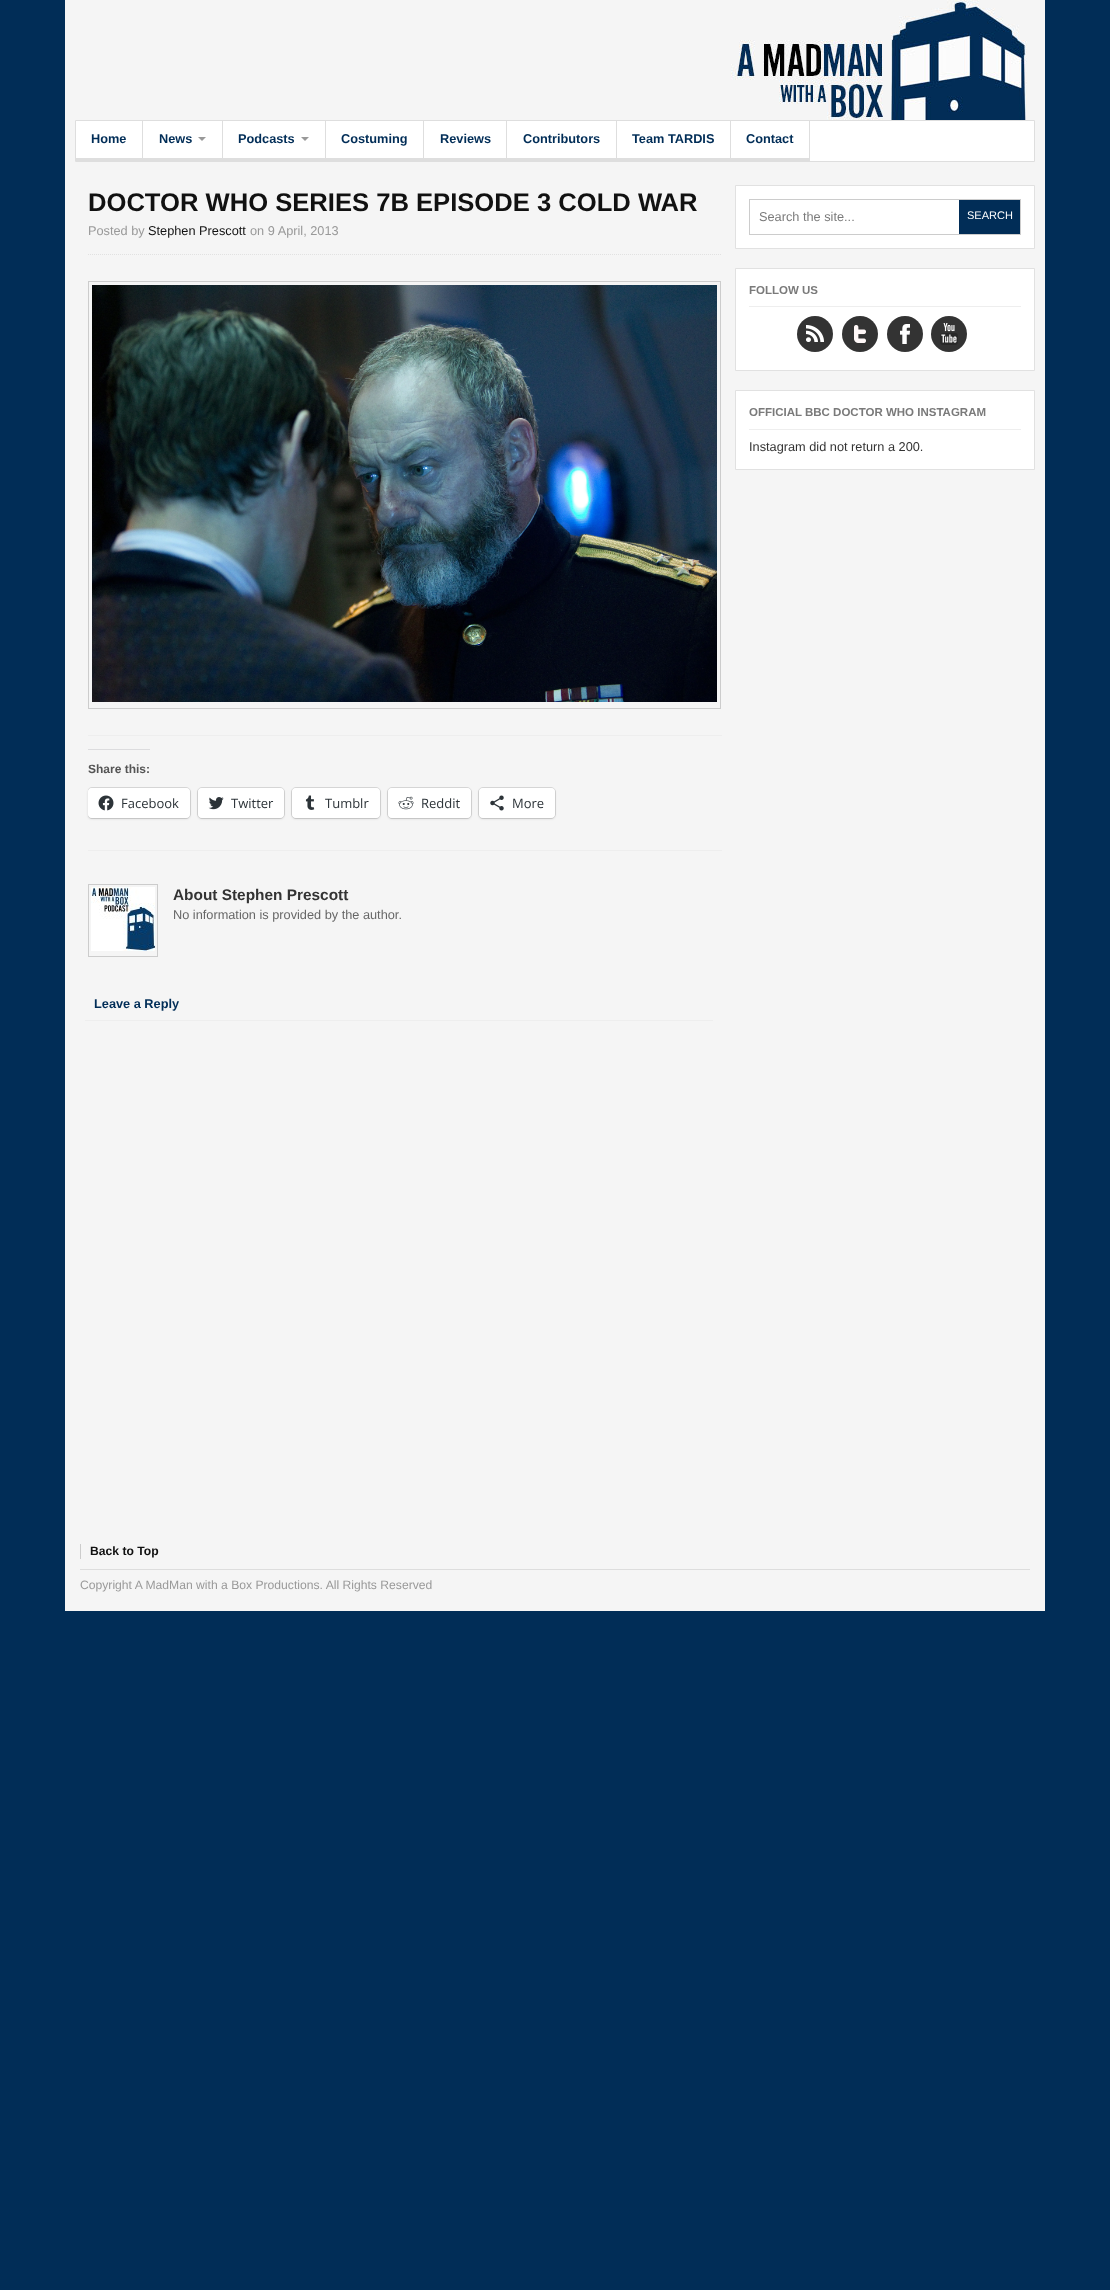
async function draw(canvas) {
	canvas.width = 1110;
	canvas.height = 2290;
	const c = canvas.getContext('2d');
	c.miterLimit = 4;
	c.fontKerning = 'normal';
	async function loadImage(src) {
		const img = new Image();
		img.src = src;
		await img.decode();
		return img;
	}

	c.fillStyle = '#012d57';
	c.fillRect(0, 0, 1110, 2290);
	c.fillStyle = '#f5f5f5';
	c.fillRect(65, 0, 980, 1611);
	c.drawImage(await loadImage('img1.png'), 731, 0, 296, 120);
	c.fillStyle = '#fff';
	c.beginPath();
	c.rect(75.5, 120.5, 959, 41);
	c.fill();
	c.strokeStyle = '#dedede';
	c.stroke();
	c.fillStyle = '#dedede';
	c.fillRect(142, 121, 1, 40);
	c.fillRect(76, 158, 66, 3);
	c.font = 'bold 12.75px Liberation Sans';
	c.fillStyle = '#012d57';
	c.fillText('Home', 91, 143);
	c.fillStyle = '#dedede';
	c.fillRect(222, 121, 1, 40);
	c.fillRect(143, 158, 79, 3);
	c.fillStyle = '#012d57';
	c.fillText('News', 159, 143);
	c.fillStyle = '#999';
	c.beginPath();
	c.moveTo(198, 137);
	c.lineTo(206, 137);
	c.lineTo(202, 141);
	c.closePath();
	c.fill();
	c.fillStyle = '#dedede';
	c.fillRect(325, 121, 1, 40);
	c.fillRect(223, 158, 102, 3);
	c.fillStyle = '#012d57';
	c.fillText('Podcasts', 238, 143);
	c.fillStyle = '#999';
	c.beginPath();
	c.moveTo(301, 137);
	c.lineTo(309, 137);
	c.lineTo(305, 141);
	c.closePath();
	c.fill();
	c.fillStyle = '#dedede';
	c.fillRect(423, 121, 1, 40);
	c.fillRect(326, 158, 97, 3);
	c.fillStyle = '#012d57';
	c.fillText('Costuming', 341, 143);
	c.fillStyle = '#dedede';
	c.fillRect(506, 121, 1, 40);
	c.fillRect(424, 158, 82, 3);
	c.fillStyle = '#012d57';
	c.fillText('Reviews', 440, 143);
	c.fillStyle = '#dedede';
	c.fillRect(616, 121, 1, 40);
	c.fillRect(507, 158, 109, 3);
	c.fillStyle = '#012d57';
	c.fillText('Contributors', 523, 143);
	c.fillStyle = '#dedede';
	c.fillRect(730, 121, 1, 40);
	c.fillRect(617, 158, 113, 3);
	c.fillStyle = '#012d57';
	c.fillText('Team TARDIS', 632, 143);
	c.fillStyle = '#dedede';
	c.fillRect(809, 121, 1, 40);
	c.fillRect(731, 158, 78, 3);
	c.fillStyle = '#012d57';
	c.fillText('Contact', 746, 143);
	c.fillStyle = '#eee';
	c.fillRect(88, 735, 634, 1);
	c.font = 'bold 25.6px Liberation Sans';
	c.fillStyle = '#111';
	c.fillText('DOCTOR WHO SERIES 7B EPISODE 3 COLD WAR', 88, 211);
	c.font = '12.75px Liberation Sans';
	c.fillStyle = '#999';
	c.fillText('Posted by', 88, 235);
	c.fillStyle = '#111';
	c.fillText('Stephen Prescott', 148, 235);
	c.fillStyle = '#999';
	c.fillText('on 9 April, 2013', 250, 235);
	c.beginPath();
	c.moveTo(88, 254.5);
	c.lineTo(722, 254.5);
	c.strokeStyle = '#e1e1e1';
	c.setLineDash([1, 1]);
	c.stroke();
	c.strokeStyle = '#ccc';
	c.setLineDash([]);
	c.strokeRect(88.5, 281.5, 632, 427);
	c.drawImage(await loadImage('img2.png'), 92, 285, 625, 417);
	c.fillStyle = '#eee';
	c.fillRect(88, 850, 634, 1);
	c.fillStyle = '#dcdcde';
	c.fillRect(88, 749, 62, 1);
	c.font = 'bold 12px Liberation Sans';
	c.fillStyle = '#555';
	c.fillText('Share this:', 88, 773);
	c.save();
	c.beginPath();
	c.rect(88, 749, 634, 101);
	c.clip();
	c.beginPath();
	c.roundRect(87.5, 787.5, 103, 31, 4.5);
	c.strokeStyle = '#d8d8d8';
	c.stroke();
	c.restore();
	c.fillStyle = '#0000001f';
	c.filter = 'blur(1px)';
	c.beginPath();
	c.roundRect(88, 789, 102, 30, 4);
	c.fill();
	c.filter = 'none';
	c.fillStyle = '#fff';
	c.beginPath();
	c.roundRect(88, 788, 102, 30, 4);
	c.fill();
	c.drawImage(await loadImage('img3.png'), 98, 795, 16, 16);
	c.font = '13px Open Sans';
	c.fillStyle = '#2c3338';
	c.fillText('Facebook', 121, 808);
	c.beginPath();
	c.roundRect(197.5, 787.5, 87, 31, 4.5);
	c.strokeStyle = '#d8d8d8';
	c.stroke();
	c.fillStyle = '#0000001f';
	c.filter = 'blur(1px)';
	c.beginPath();
	c.roundRect(198, 789, 86, 30, 4);
	c.fill();
	c.filter = 'none';
	c.fillStyle = '#fff';
	c.beginPath();
	c.roundRect(198, 788, 86, 30, 4);
	c.fill();
	c.drawImage(await loadImage('img4.png'), 208, 797, 16, 13);
	c.fillStyle = '#2c3338';
	c.fillText('Twitter', 231, 808);
	c.beginPath();
	c.roundRect(291.5, 787.5, 89, 31, 4.5);
	c.stroke();
	c.fillStyle = '#0000001f';
	c.filter = 'blur(1px)';
	c.beginPath();
	c.roundRect(292, 789, 88, 30, 4);
	c.fill();
	c.filter = 'none';
	c.fillStyle = '#fff';
	c.beginPath();
	c.roundRect(292, 788, 88, 30, 4);
	c.fill();
	c.drawImage(await loadImage('img5.png'), 305, 795, 10, 15);
	c.fillStyle = '#2c3338';
	c.fillText('Tumblr', 325, 808);
	c.beginPath();
	c.roundRect(387.5, 787.5, 84, 31, 4.5);
	c.stroke();
	c.fillStyle = '#0000001f';
	c.filter = 'blur(1px)';
	c.beginPath();
	c.roundRect(388, 789, 83, 30, 4);
	c.fill();
	c.filter = 'none';
	c.fillStyle = '#fff';
	c.beginPath();
	c.roundRect(388, 788, 83, 30, 4);
	c.fill();
	c.drawImage(await loadImage('img6.png'), 398, 796, 16, 14);
	c.fillStyle = '#2c3338';
	c.fillText('Reddit', 421, 808);
	c.beginPath();
	c.roundRect(478.5, 787.5, 77, 31, 4.5);
	c.stroke();
	c.fillStyle = '#0000001f';
	c.filter = 'blur(1px)';
	c.beginPath();
	c.roundRect(479, 789, 76, 30, 4);
	c.fill();
	c.filter = 'none';
	c.fillStyle = '#fff';
	c.beginPath();
	c.roundRect(479, 788, 76, 30, 4);
	c.fill();
	c.drawImage(await loadImage('img7.png'), 490, 795, 14, 16);
	c.fillStyle = '#2c3338';
	c.fillText('More', 512, 808);
	c.strokeStyle = '#ccc';
	c.strokeRect(88.5, 884.5, 69, 72);
	c.drawImage(await loadImage('img8.png'), 91, 887, 64, 64);
	c.font = 'bold 15.4px Liberation Sans';
	c.fillStyle = '#333';
	c.fillText('About Stephen Prescott', 173, 900);
	c.font = '12.75px Liberation Sans';
	c.fillStyle = '#666';
	c.fillText('No information is provided by the author.', 173, 919);
	c.fillStyle = '#eee';
	c.fillRect(85, 1020, 628, 1);
	c.font = 'bold 12.75px Liberation Sans';
	c.fillStyle = '#012d57';
	c.fillText('Leave a Reply', 94, 1008);
	c.fillStyle = '#fff';
	c.beginPath();
	c.rect(735.5, 185.5, 299, 63);
	c.fill();
	c.strokeStyle = '#e1e1e1';
	c.stroke();
	c.strokeStyle = '#ccc';
	c.strokeRect(749.5, 199.5, 271, 35);
	c.font = '12.75px Liberation Sans';
	c.fillStyle = '#7a7a7a';
	c.fillText('Search the site...', 759, 221);
	c.fillStyle = '#012d57';
	c.fillRect(959, 200, 61, 34);
	c.font = '11px Liberation Sans';
	c.fillStyle = '#fff';
	c.fillText('SEARCH', 967, 219);
	c.beginPath();
	c.rect(735.5, 268.5, 299, 102);
	c.fill();
	c.strokeStyle = '#e1e1e1';
	c.stroke();
	c.fillStyle = '#eee';
	c.fillRect(749, 306, 272, 1);
	c.font = 'bold 11.5px Liberation Sans';
	c.fillStyle = '#7a7a7a';
	c.fillText('FOLLOW US', 749, 294);
	c.fillStyle = '#333';
	c.beginPath();
	c.arc(815, 334, 18, 0, 2 * Math.PI);
	c.fill();
	c.drawImage(await loadImage('img9.png'), 806, 325, 18, 17);
	c.beginPath();
	c.arc(860, 334, 18, 0, 2 * Math.PI);
	c.fill();
	c.drawImage(await loadImage('img10.png'), 854, 325, 12, 18);
	c.beginPath();
	c.arc(905, 334, 18, 0, 2 * Math.PI);
	c.fill();
	c.drawImage(await loadImage('img11.png'), 900, 324, 10, 20);
	c.beginPath();
	c.arc(949, 334, 18, 0, 2 * Math.PI);
	c.fill();
	c.drawImage(await loadImage('img12.png'), 940, 323, 18, 22);
	c.fillStyle = '#fff';
	c.beginPath();
	c.rect(735.5, 390.5, 299, 79);
	c.fill();
	c.stroke();
	c.fillStyle = '#eee';
	c.fillRect(749, 429, 272, 1);
	c.fillStyle = '#7a7a7a';
	c.fillText('OFFICIAL BBC DOCTOR WHO INSTAGRAM', 749, 416);
	c.font = '12.75px Liberation Sans';
	c.fillStyle = '#333';
	c.fillText('Instagram did not return a 200.', 749, 451);
	c.fillStyle = '#ddd';
	c.fillRect(80, 1569, 950, 1);
	c.fillStyle = '#ccc';
	c.fillRect(80, 1544, 1, 15);
	c.font = 'bold 12.15px Liberation Sans';
	c.fillStyle = '#111';
	c.fillText('Back to Top', 90, 1555);
	c.font = '12.15px Liberation Sans';
	c.fillStyle = '#999';
	c.fillText('Copyright A MadMan with a Box Productions. All Rights Reserved', 80, 1589);
}

draw(document.querySelector('canvas'));
